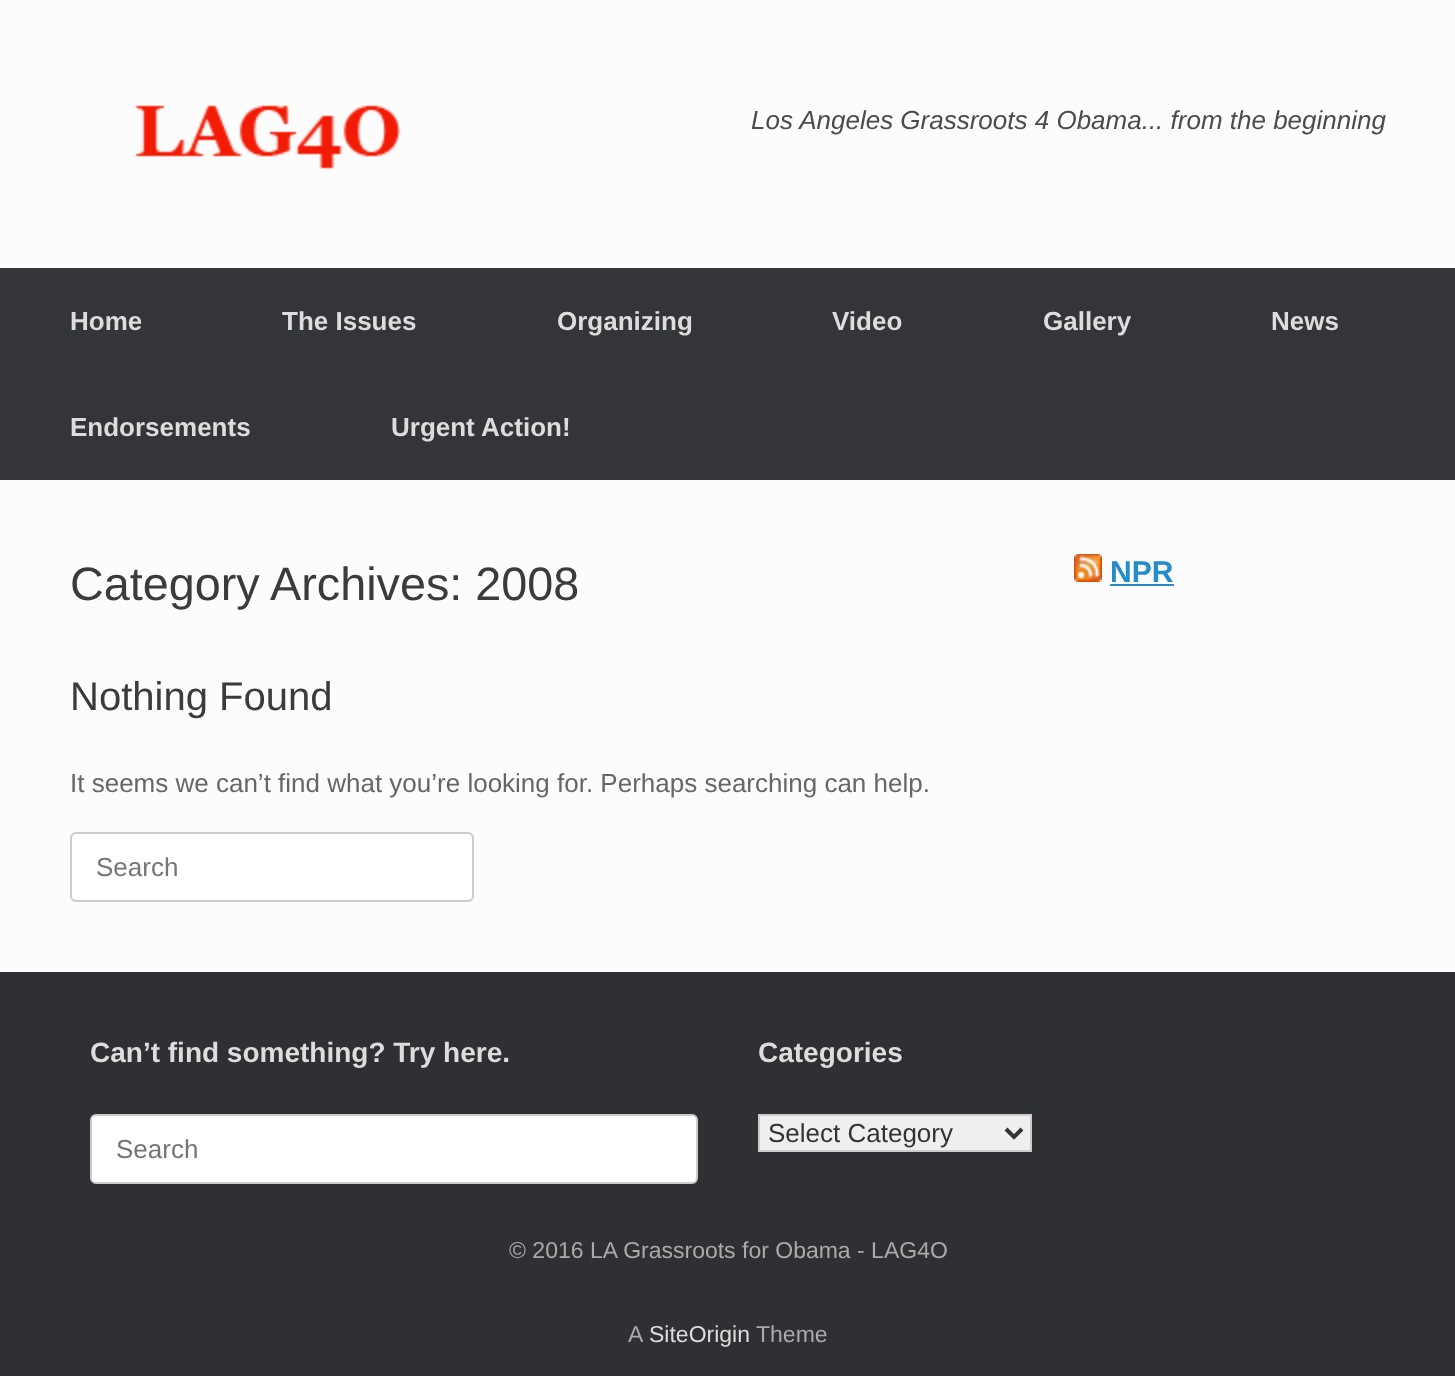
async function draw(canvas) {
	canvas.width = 1455;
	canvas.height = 1376;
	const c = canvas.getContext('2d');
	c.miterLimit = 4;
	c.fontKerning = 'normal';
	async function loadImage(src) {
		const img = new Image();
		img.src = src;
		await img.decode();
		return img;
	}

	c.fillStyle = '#2f3033';
	c.fillRect(0, 0, 1455, 1376);
	c.fillStyle = '#fcfcfc';
	c.fillRect(0, 0, 1455, 268);
	c.drawImage(await loadImage('img1.png'), 135, 105, 266, 64);
	c.font = 'italic 26px Liberation Sans';
	c.fillStyle = '#4b4b4b';
	c.fillText('Los Angeles Grassroots 4 Obama... from the beginning', 751, 129);
	c.fillStyle = '#343538';
	c.fillRect(0, 268, 1455, 212);
	c.font = 'bold 26px Liberation Sans';
	c.fillStyle = '#ddd';
	for (const [text, x, y] of [
		['Home', 70, 330],
		['The Issues', 282, 330],
		['Organizing', 557, 330],
		['Video', 832, 330],
		['Gallery', 1043, 330],
		['News', 1271, 330],
		['Endorsements', 70, 436],
		['Urgent Action!', 391, 436],
	]) {
		c.fillText(text, x, y);
	}
	c.fillStyle = '#fcfcfc';
	c.fillRect(0, 480, 1455, 492);
	c.font = '46.75px Liberation Sans';
	c.fillStyle = '#3b3b3b';
	c.fillText('Category Archives: 2008', 70, 600);
	c.font = '40px Liberation Sans';
	c.fillText('Nothing Found', 70, 710);
	c.font = '26px Liberation Sans';
	c.fillStyle = '#666';
	c.fillText('It seems we can’t find what you’re looking for. Perhaps searching can help.', 70, 792);
	c.fillStyle = '#fff';
	c.beginPath();
	c.roundRect(71, 833, 402, 68, 5);
	c.fill();
	c.strokeStyle = '#ccc';
	c.lineWidth = 2;
	c.stroke();
	c.fillStyle = '#757575';
	c.fillText('Search', 96, 876);
	c.drawImage(await loadImage('img2.png'), 1074, 554, 28, 28);
	c.font = 'bold 30px Liberation Sans';
	c.fillStyle = '#248cc8';
	c.fillText('NPR', 1110, 582);
	c.fillRect(1110, 584, 64, 2);
	c.font = 'bold 28px Liberation Sans';
	c.fillStyle = '#ddd';
	c.fillText('Can’t find something? Try here.', 90, 1062);
	c.fillStyle = '#fff';
	c.beginPath();
	c.roundRect(91, 1115, 606, 68, 5);
	c.fill();
	c.stroke();
	c.font = '26px Liberation Sans';
	c.fillStyle = '#757575';
	c.fillText('Search', 116, 1158);
	c.font = 'bold 28px Liberation Sans';
	c.fillStyle = '#ddd';
	c.fillText('Categories', 758, 1062);
	c.fillStyle = '#efefef';
	c.beginPath();
	c.rect(759, 1115, 272, 36);
	c.fill();
	c.stroke();
	c.beginPath();
	c.moveTo(1006, 1129);
	c.lineTo(1014, 1137);
	c.lineTo(1022, 1129);
	c.strokeStyle = '#333';
	c.lineWidth = 4;
	c.stroke();
	c.font = '26px Liberation Sans';
	c.fillStyle = '#333';
	c.fillText('Select Category', 768, 1142);
	c.font = '23px Liberation Sans';
	c.fillStyle = '#aaa';
	c.fillText('© 2016 LA Grassroots for Obama - LAG4O', 509, 1258);
	c.fillText('A', 628, 1342);
	c.fillStyle = '#ddd';
	c.fillText('SiteOrigin', 649, 1342);
	c.fillStyle = '#aaa';
	c.fillText('Theme', 756, 1342);
}

draw(document.querySelector('canvas'));
